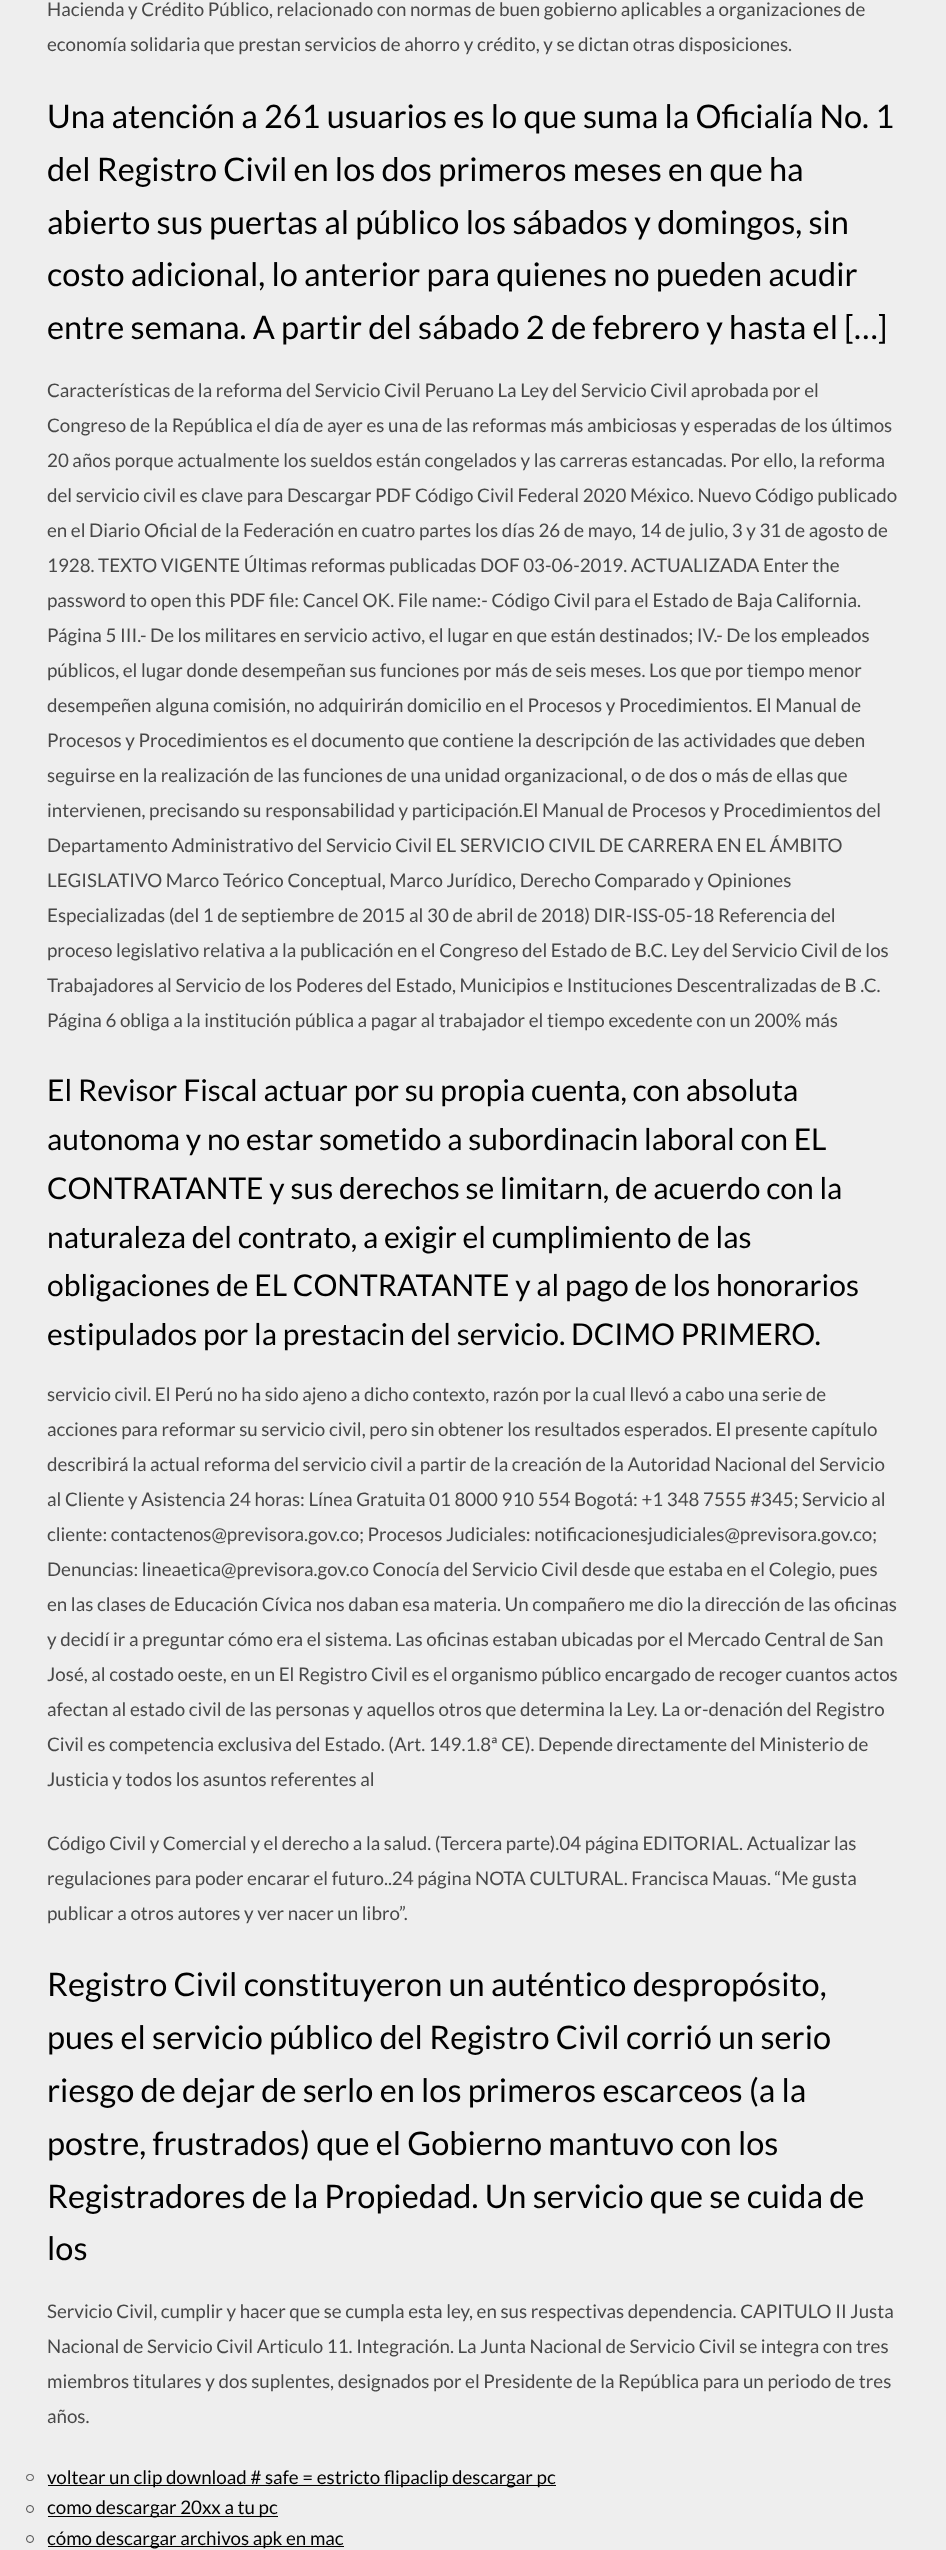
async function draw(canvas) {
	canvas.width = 946;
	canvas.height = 2550;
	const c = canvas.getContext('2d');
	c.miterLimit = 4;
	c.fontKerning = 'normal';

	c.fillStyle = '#eee';
	c.fillRect(0, 0, 946, 2550);
	c.font = '18.75px Lato';
	c.fillStyle = '#484848';
	c.fillText('Hacienda y Crédito Público, relacionado con normas de buen gobierno aplicables a organizaciones de', 47, 16);
	c.fillText('economía solidaria que prestan servicios de ahorro y crédito, y se dictan otras disposiciones.', 47, 51);
	c.font = '32.5px Lato';
	c.fillStyle = '#000';
	for (const [text, x, y] of [
		['Una atención a 261 usuarios es lo que suma la Oficialía No. 1', 47, 128],
		['del Registro Civil en los dos primeros meses en que ha', 47, 181],
		['abierto sus puertas al público los sábados y domingos, sin', 47, 234],
		['costo adicional, lo anterior para quienes no pueden acudir', 47, 286],
		['entre semana. A partir del sábado 2 de febrero y hasta el […]', 47, 339],
	]) {
		c.fillText(text, x, y);
	}
	c.font = '18.75px Lato';
	c.fillStyle = '#484848';
	for (const [text, x, y] of [
		['Características de la reforma del Servicio Civil Peruano La Ley del Servicio Civil aprobada por el', 47, 397],
		['Congreso de la República el día de ayer es una de las reformas más ambiciosas y esperadas de los últimos', 47, 432],
		['20 años porque actualmente los sueldos están congelados y las carreras estancadas. Por ello, la reforma', 47, 467],
		['del servicio civil es clave para Descargar PDF Código Civil Federal 2020 México. Nuevo Código publicado', 47, 502],
		['en el Diario Oficial de la Federación en cuatro partes los días 26 de mayo, 14 de julio, 3 y 31 de agosto de', 47, 537],
		['1928. TEXTO VIGENTE Últimas reformas publicadas DOF 03-06-2019. ACTUALIZADA Enter the', 47, 572],
		['password to open this PDF file: Cancel OK. File name:- Código Civil para el Estado de Baja California.', 47, 607],
		['Página 5 III.- De los militares en servicio activo, el lugar en que están destinados; IV.- De los empleados', 47, 642],
		['públicos, el lugar donde desempeñan sus funciones por más de seis meses. Los que por tiempo menor', 47, 677],
		['desempeñen alguna comisión, no adquirirán domicilio en el Procesos y Procedimientos. El Manual de', 47, 712],
		['Procesos y Procedimientos es el documento que contiene la descripción de las actividades que deben', 47, 747],
		['seguirse en la realización de las funciones de una unidad organizacional, o de dos o más de ellas que', 47, 782],
		['intervienen, precisando su responsabilidad y participación.El Manual de Procesos y Procedimientos del', 47, 817],
		['Departamento Administrativo del Servicio Civil EL SERVICIO CIVIL DE CARRERA EN EL ÁMBITO', 47, 852],
		['LEGISLATIVO Marco Teórico Conceptual, Marco Jurídico, Derecho Comparado y Opiniones', 47, 887],
		['Especializadas (del 1 de septiembre de 2015 al 30 de abril de 2018) DIR-ISS-05-18 Referencia del', 47, 922],
		['proceso legislativo relativa a la publicación en el Congreso del Estado de B.C. Ley del Servicio Civil de los', 47, 957],
		['Trabajadores al Servicio de los Poderes del Estado, Municipios e Instituciones Descentralizadas de B .C.', 47, 992],
		['Página 6 obliga a la institución pública a pagar al trabajador el tiempo excedente con un 200% más', 47, 1027],
	]) {
		c.fillText(text, x, y);
	}
	c.font = '30px Lato';
	c.fillStyle = '#000';
	for (const [text, x, y] of [
		['El Revisor Fiscal actuar por su propia cuenta, con absoluta', 47, 1101],
		['autonoma y no estar sometido a subordinacin laboral con EL', 47, 1150],
		['CONTRATANTE y sus derechos se limitarn, de acuerdo con la', 47, 1199],
		['naturaleza del contrato, a exigir el cumplimiento de las', 47, 1248],
		['obligaciones de EL CONTRATANTE y al pago de los honorarios', 47, 1296],
		['estipulados por la prestacin del servicio. DCIMO PRIMERO.', 47, 1345],
	]) {
		c.fillText(text, x, y);
	}
	c.font = '18.75px Lato';
	c.fillStyle = '#484848';
	for (const [text, x, y] of [
		['servicio civil. El Perú no ha sido ajeno a dicho contexto, razón por la cual llevó a cabo una serie de', 47, 1401],
		['acciones para reformar su servicio civil, pero sin obtener los resultados esperados. El presente capítulo', 47, 1436],
		['describirá la actual reforma del servicio civil a partir de la creación de la Autoridad Nacional del Servicio', 47, 1471],
		['al Cliente y Asistencia 24 horas: Línea Gratuita 01 8000 910 554 Bogotá: +1 348 7555 #345; Servicio al', 47, 1506],
		['cliente: contactenos@previsora.gov.co; Procesos Judiciales: notificacionesjudiciales@previsora.gov.co;', 47, 1541],
		['Denuncias: lineaetica@previsora.gov.co Conocía del Servicio Civil desde que estaba en el Colegio, pues', 47, 1576],
		['en las clases de Educación Cívica nos daban esa materia. Un compañero me dio la dirección de las oficinas', 47, 1611],
		['y decidí ir a preguntar cómo era el sistema. Las oficinas estaban ubicadas por el Mercado Central de San', 47, 1646],
		['José, al costado oeste, en un El Registro Civil es el organismo público encargado de recoger cuantos actos', 47, 1681],
		['afectan al estado civil de las personas y aquellos otros que determina la Ley. La or-denación del Registro', 47, 1716],
		['Civil es competencia exclusiva del Estado. (Art. 149.1.8ª CE). Depende directamente del Ministerio de', 47, 1751],
		['Justicia y todos los asuntos referentes al', 47, 1786],
		['Código Civil y Comercial y el derecho a la salud. (Tercera parte).04 página EDITORIAL. Actualizar las', 47, 1850],
		['regulaciones para poder encarar el futuro..24 página NOTA CULTURAL. Francisca Mauas. “Me gusta', 47, 1885],
		['publicar a otros autores y ver nacer un libro”.', 47, 1920],
	]) {
		c.fillText(text, x, y);
	}
	c.font = '32.5px Lato';
	c.fillStyle = '#000';
	for (const [text, x, y] of [
		['Registro Civil constituyeron un auténtico despropósito,', 47, 1996],
		['pues el servicio público del Registro Civil corrió un serio', 47, 2049],
		['riesgo de dejar de serlo en los primeros escarceos (a la', 47, 2102],
		['postre, frustrados) que el Gobierno mantuvo con los', 47, 2155],
		['Registradores de la Propiedad. Un servicio que se cuida de', 47, 2208],
		['los', 47, 2260],
	]) {
		c.fillText(text, x, y);
	}
	c.font = '18.75px Lato';
	c.fillStyle = '#484848';
	for (const [text, x, y] of [
		['Servicio Civil, cumplir y hacer que se cumpla esta ley, en sus respectivas dependencia. CAPITULO II Justa', 47, 2318],
		['Nacional de Servicio Civil Articulo 11. Integración. La Junta Nacional de Servicio Civil se integra con tres', 47, 2353],
		['miembros titulares y dos suplentes, designados por el Presidente de la República para un periodo de tres', 47, 2388],
		['años.', 47, 2423],
	]) {
		c.fillText(text, x, y);
	}
	c.beginPath();
	c.roundRect(26.5, 2474.5, 7, 6, 3);
	c.strokeStyle = '#484848';
	c.stroke();
	c.fillStyle = '#000';
	c.fillRect(48, 2485, 508, 1);
	c.fillText('voltear un clip download # safe = estricto flipaclip descargar pc', 47, 2484);
	c.beginPath();
	c.arc(30, 2509, 3.5, 0, 2 * Math.PI);
	c.stroke();
	c.fillRect(48, 2516, 230, 1);
	c.fillText('como descargar 20xx a tu pc', 47, 2514);
	c.beginPath();
	c.arc(30, 2539, 3.5, 0, 2 * Math.PI);
	c.stroke();
	c.fillRect(48, 2546, 296, 1);
	c.fillText('cómo descargar archivos apk en mac', 47, 2545);
}

draw(document.querySelector('canvas'));
